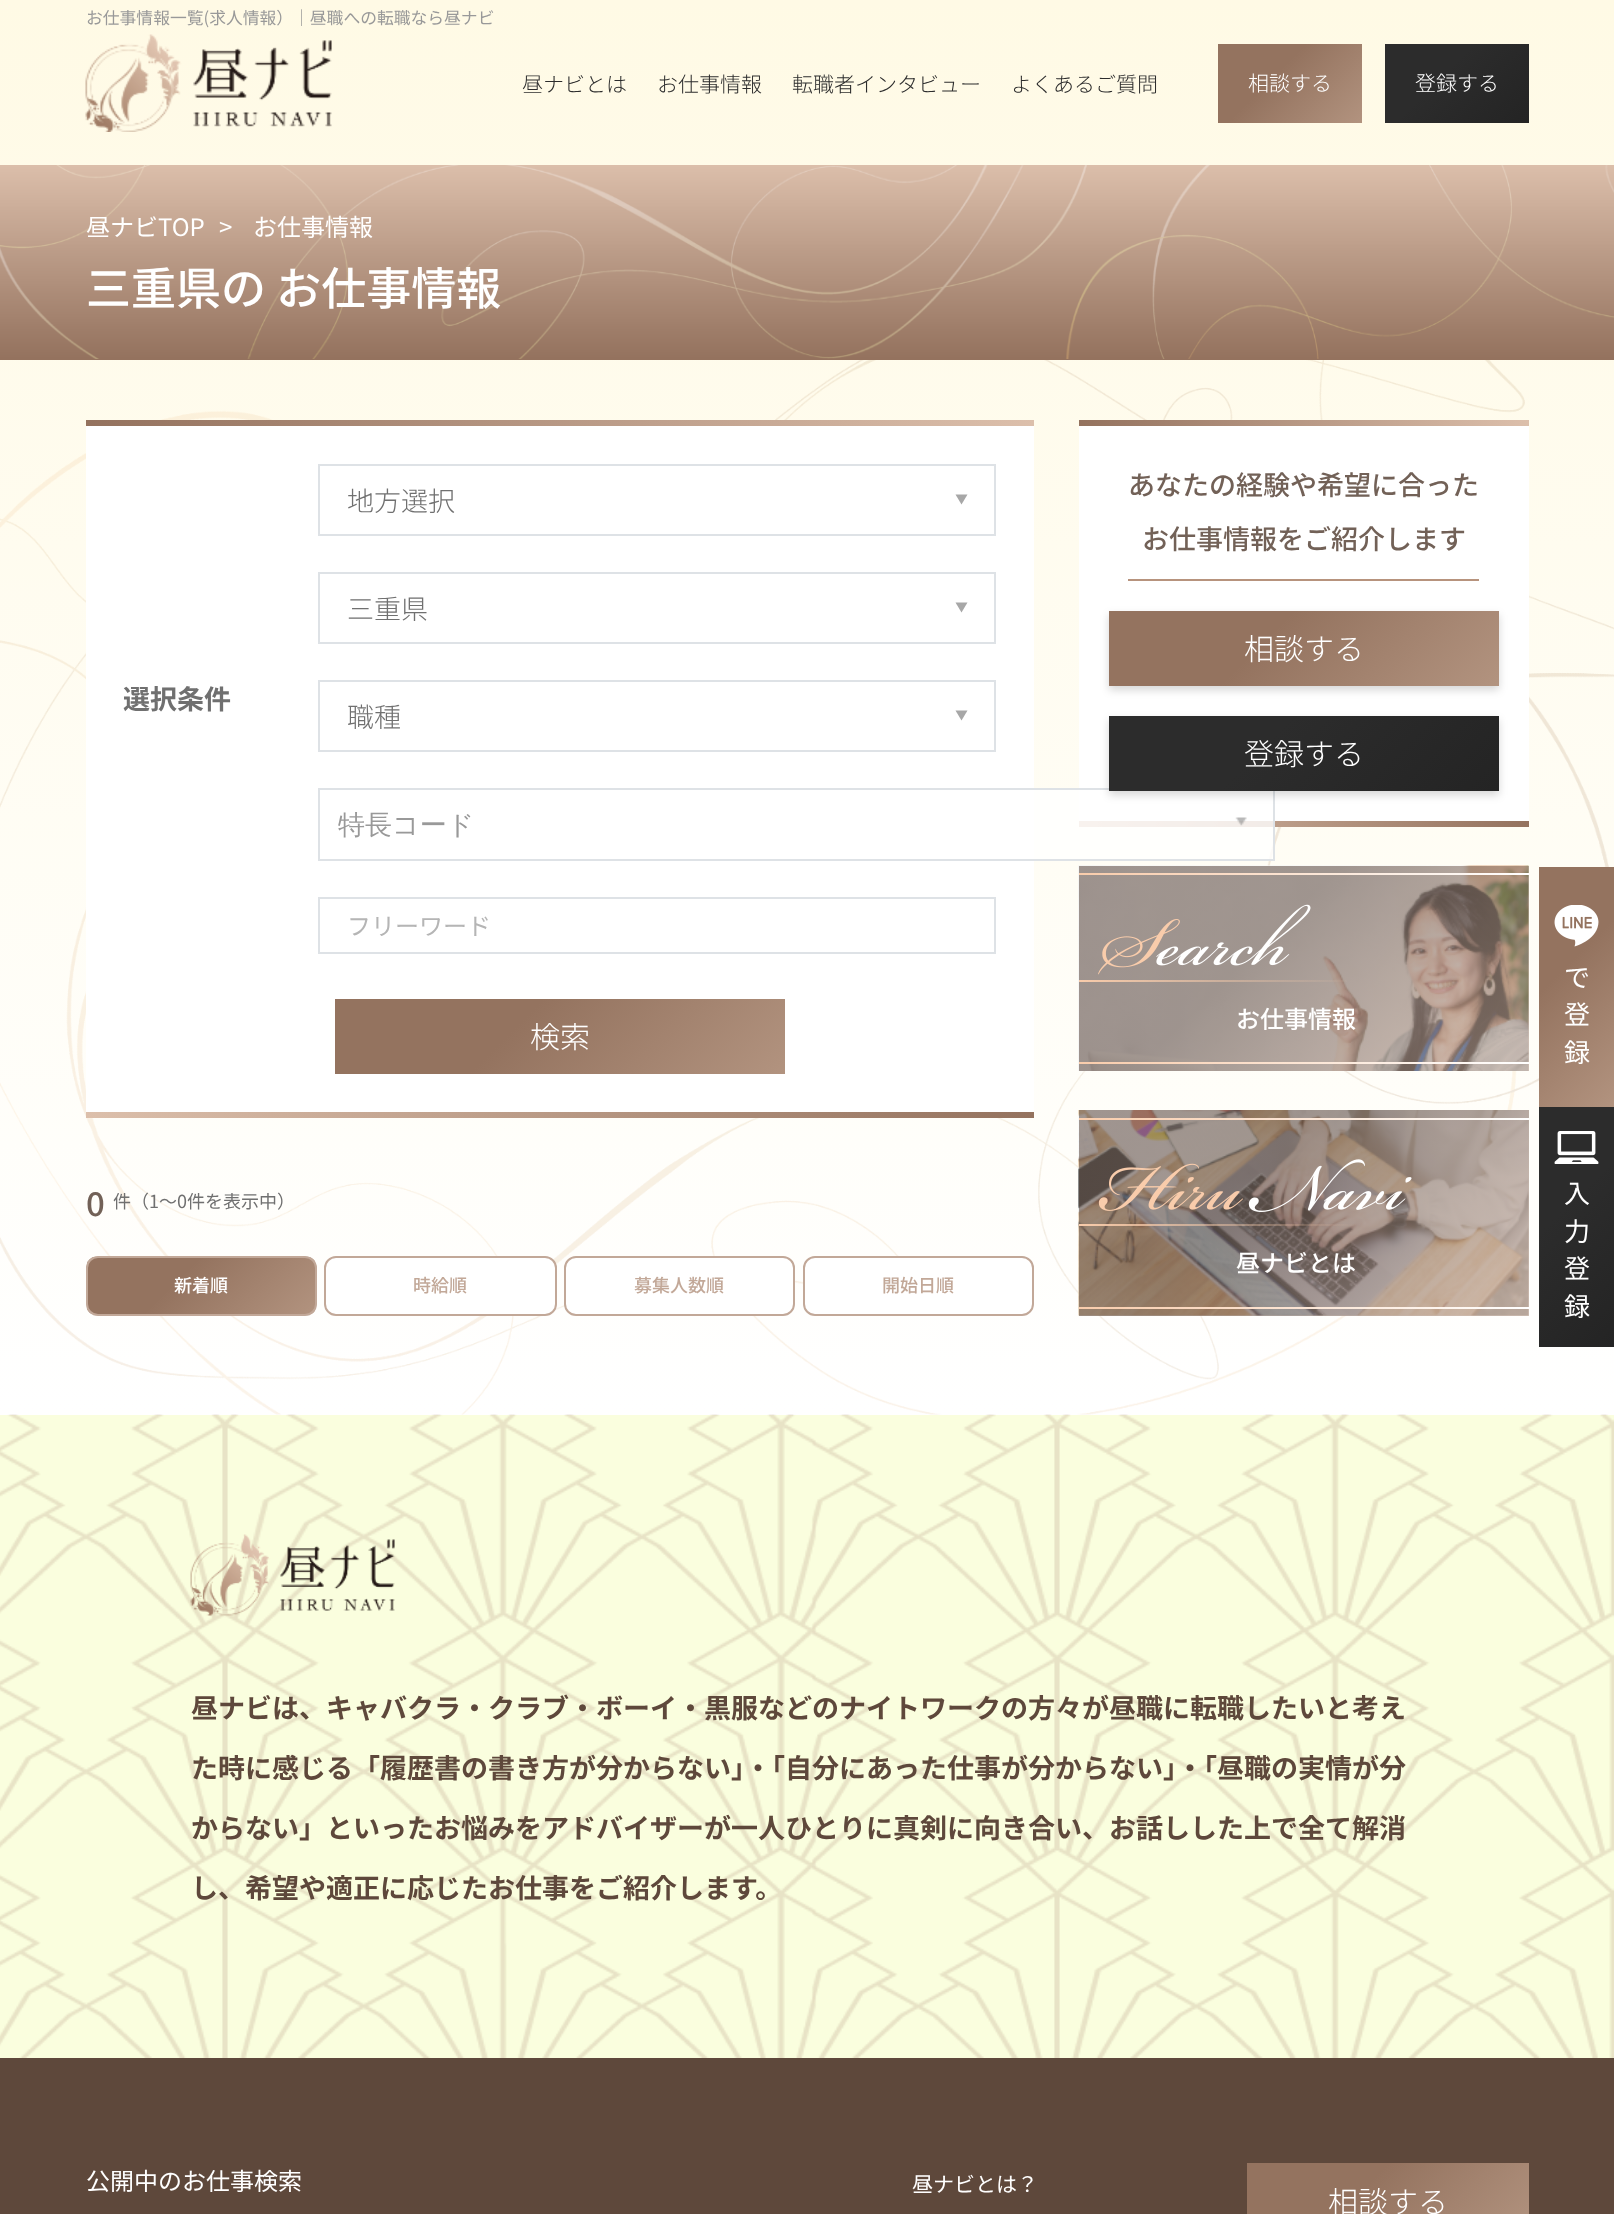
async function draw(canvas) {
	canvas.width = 1614;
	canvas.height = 2214;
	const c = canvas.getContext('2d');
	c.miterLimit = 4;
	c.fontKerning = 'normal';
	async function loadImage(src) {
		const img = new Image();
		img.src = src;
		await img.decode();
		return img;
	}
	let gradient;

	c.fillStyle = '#5e483b';
	c.fillRect(0, 0, 1614, 2214);
	gradient = c.createLinearGradient(807, 0, 807, 1415);
	gradient.addColorStop(0, '#fffae5');
	gradient.addColorStop(1, '#fff');
	c.fillStyle = gradient;
	c.fillRect(0, 0, 1614, 1415);
	c.drawImage(await loadImage('img1.png'), 0, 360, 1614, 1055);
	c.font = '16.8px Noto Sans JP';
	c.fillStyle = '#999';
	c.fillText('お仕事情報一覧(求人情報）｜昼職への転職なら昼ナビ', 86, 24);
	gradient = c.createLinearGradient(86, 423, 1034, 423);
	gradient.addColorStop(0, '#94725e');
	gradient.addColorStop(1, '#dcbfab');
	c.fillStyle = gradient;
	c.fillRect(86, 420, 948, 6);
	c.fillStyle = '#fff';
	c.fillRect(86, 426, 948, 686);
	c.font = 'bold 27px Noto Sans JP';
	c.fillStyle = '#707070';
	c.fillText('選択条件', 123, 709);
	c.fillStyle = '#a7a7a7';
	c.beginPath();
	c.moveTo(961.5, 504.5);
	c.lineTo(955.5, 494.5);
	c.lineTo(967.5, 494.5);
	c.closePath();
	c.fill();
	c.strokeStyle = '#dee2e6';
	c.lineWidth = 2;
	c.strokeRect(319, 465, 676, 70);
	c.font = '300 27px Noto Sans JP';
	c.fillStyle = '#707070';
	c.fillText('地方選択', 347, 511);
	c.fillStyle = '#a7a7a7';
	c.beginPath();
	c.moveTo(961.5, 612.5);
	c.lineTo(955.5, 602.5);
	c.lineTo(967.5, 602.5);
	c.closePath();
	c.fill();
	c.strokeRect(319, 573, 676, 70);
	c.fillStyle = '#707070';
	c.fillText('三重県', 347, 619);
	c.fillStyle = '#a7a7a7';
	c.beginPath();
	c.moveTo(961.5, 720.5);
	c.lineTo(955.5, 710.5);
	c.lineTo(967.5, 710.5);
	c.closePath();
	c.fill();
	c.strokeRect(319, 681, 676, 70);
	c.fillStyle = '#707070';
	c.fillText('職種', 347, 727);
	c.fillStyle = '#fff';
	c.fillRect(1079, 426, 450, 395);
	gradient = c.createLinearGradient(1079, 824, 1529, 824);
	gradient.addColorStop(0, '#dcbfab');
	gradient.addColorStop(1, '#94725e');
	c.fillStyle = gradient;
	c.fillRect(1079, 821, 450, 6);
	c.fillStyle = '#ffffffcc';
	c.fillRect(1034, 790, 239, 69);
	c.strokeRect(319, 789, 955, 71);
	c.save();
	c.beginPath();
	c.rect(338, 807, 174, 36);
	c.clip();
	c.font = '500 27px WenQuanYi Zen Hei';
	c.fillStyle = '#999';
	c.fillText('特長コード', 338, 834);
	c.restore();
	c.drawImage(await loadImage('img2.png'), 1235, 817, 12, 9);
	c.strokeRect(319, 898, 676, 55);
	c.font = '24px Noto Sans JP';
	c.fillStyle = '#b5b5b5';
	c.fillText('フリーワード', 347, 935);
	gradient = c.createLinearGradient(428, 905, 691, 1168);
	gradient.addColorStop(0.4, '#94735f');
	gradient.addColorStop(1, '#b2937f');
	c.fillStyle = gradient;
	c.fillRect(335, 999, 450, 75);
	c.font = '300 30px Noto Sans JP';
	c.fillStyle = '#fff';
	c.fillText('検索', 530, 1048);
	gradient = c.createLinearGradient(86, 1115, 1034, 1115);
	gradient.addColorStop(0, '#dcbfab');
	gradient.addColorStop(1, '#94725e');
	c.fillStyle = gradient;
	c.fillRect(86, 1112, 948, 6);
	c.font = '500 33px Noto Sans JP';
	c.fillStyle = '#726157';
	c.fillText('0', 86, 1216);
	c.font = '18px Noto Sans JP';
	c.fillStyle = '#707070';
	c.fillText('件（1〜0件を表示中）', 113, 1208);
	c.save();
	c.beginPath();
	c.roundRect(86, 1256, 231, 60, 12);
	c.clip();
	gradient = c.createLinearGradient(130, 1214, 272, 1357);
	gradient.addColorStop(0.4, '#94735f');
	gradient.addColorStop(1, '#b2937f');
	c.fillStyle = gradient;
	c.fillRect(87, 1257, 228, 57);
	c.restore();
	c.beginPath();
	c.roundRect(87, 1257, 229, 58, 11);
	c.strokeStyle = '#c2a898';
	c.stroke();
	c.font = '500 18px Noto Sans JP';
	c.fillStyle = '#fff';
	c.fillText('新着順', 174, 1292);
	c.beginPath();
	c.roundRect(325, 1257, 231, 58, 11);
	c.fill();
	c.stroke();
	c.fillStyle = '#c2a898';
	c.fillText('時給順', 413, 1292);
	c.fillStyle = '#fff';
	c.beginPath();
	c.roundRect(565, 1257, 229, 58, 11);
	c.fill();
	c.stroke();
	c.fillStyle = '#c2a898';
	c.fillText('募集人数順', 634, 1292);
	c.fillStyle = '#fff';
	c.beginPath();
	c.roundRect(804, 1257, 229, 58, 11);
	c.fill();
	c.stroke();
	c.fillStyle = '#c2a898';
	c.fillText('開始日順', 882, 1292);
	gradient = c.createLinearGradient(1079, 423, 1529, 423);
	gradient.addColorStop(0, '#94725e');
	gradient.addColorStop(1, '#dcbfab');
	c.fillStyle = gradient;
	c.fillRect(1079, 420, 450, 6);
	c.fillStyle = '#b7937d';
	c.fillRect(1128, 579, 351, 2);
	c.font = '500 27px Noto Sans JP';
	c.fillStyle = '#726157';
	c.fillText('あなたの経験や希望に合った', 1128, 495);
	c.fillText('お仕事情報をご紹介します', 1142, 549);
	c.fillStyle = '#00000029';
	c.filter = 'blur(4.5px)';
	c.beginPath();
	c.rect(1109, 615, 390, 75);
	c.fill();
	c.filter = 'none';
	gradient = c.createLinearGradient(1187, 532, 1420, 764);
	gradient.addColorStop(0.4, '#94735f');
	gradient.addColorStop(1, '#b2937f');
	c.fillStyle = gradient;
	c.fillRect(1109, 611, 390, 75);
	c.font = '300 30px Noto Sans JP';
	c.fillStyle = '#fff';
	c.fillText('相談する', 1244, 660);
	c.fillStyle = '#00000029';
	c.filter = 'blur(4.5px)';
	c.beginPath();
	c.rect(1109, 720, 390, 75);
	c.fill();
	c.filter = 'none';
	gradient = c.createLinearGradient(1187, 637, 1420, 869);
	gradient.addColorStop(0.4, '#2c2c2c');
	gradient.addColorStop(1, '#242424');
	c.fillStyle = gradient;
	c.fillRect(1109, 716, 390, 75);
	c.fillStyle = '#fff';
	c.fillText('登録する', 1244, 765);
	c.drawImage(await loadImage('img3.png'), 1078, 865, 451, 206);
	gradient = c.createLinearGradient(1140, 804, 1467, 1132);
	gradient.addColorStop(0.4, '#726157a6');
	gradient.addColorStop(1, '#c2a898a6');
	c.fillStyle = gradient;
	c.fillRect(1079, 866, 450, 205);
	gradient = c.createLinearGradient(1191, 761, 1416, 987);
	gradient.addColorStop(0, '#f9ccab');
	gradient.addColorStop(1, '#fff');
	c.fillStyle = gradient;
	c.fillRect(1079, 873, 450, 2);
	c.drawImage(await loadImage('img4.png'), 1098, 919, 82, 56);
	c.drawImage(await loadImage('img5.png'), 1156, 904, 155, 62);
	gradient = c.createLinearGradient(1148, 911, 1287, 1050);
	gradient.addColorStop(0, '#f9ccab');
	gradient.addColorStop(1, '#f9ccab00');
	c.fillStyle = gradient;
	c.fillRect(1079, 980, 268, 2);
	c.font = '500 24px Noto Sans JP';
	c.fillStyle = '#fff';
	c.fillText('お仕事情報', 1236, 1028);
	gradient = c.createLinearGradient(1191, 950, 1416, 1176);
	gradient.addColorStop(0, '#f9ccab');
	gradient.addColorStop(1, '#fff');
	c.fillStyle = gradient;
	c.fillRect(1079, 1062, 450, 2);
	c.drawImage(await loadImage('img6.png'), 1078, 1110, 451, 206);
	gradient = c.createLinearGradient(1140, 1049, 1467, 1377);
	gradient.addColorStop(0.4, '#726157a6');
	gradient.addColorStop(1, '#c2a898a6');
	c.fillStyle = gradient;
	c.fillRect(1079, 1110, 450, 206);
	gradient = c.createLinearGradient(1191, 1005, 1416, 1231);
	gradient.addColorStop(0, '#f9ccab');
	gradient.addColorStop(1, '#fff');
	c.fillStyle = gradient;
	c.fillRect(1079, 1118, 450, 2);
	c.drawImage(await loadImage('img7.png'), 1098, 1163, 145, 48);
	c.drawImage(await loadImage('img8.png'), 1248, 1159, 164, 53);
	gradient = c.createLinearGradient(1148, 1155, 1287, 1295);
	gradient.addColorStop(0, '#f9ccab');
	gradient.addColorStop(1, '#f9ccab00');
	c.fillStyle = gradient;
	c.fillRect(1079, 1224, 277, 2);
	c.fillStyle = '#fff';
	c.fillText('昼ナビとは', 1236, 1272);
	gradient = c.createLinearGradient(1191, 1194, 1416, 1420);
	gradient.addColorStop(0, '#f9ccab');
	gradient.addColorStop(1, '#fff');
	c.fillStyle = gradient;
	c.fillRect(1079, 1307, 450, 2);
	gradient = c.createLinearGradient(807, 165, 807, 360);
	gradient.addColorStop(0, '#dcbfab');
	gradient.addColorStop(1, '#94725e');
	c.fillStyle = gradient;
	c.fillRect(0, 359, 1614, 1);
	c.drawImage(await loadImage('img9.png'), 0, 165, 1614, 194);
	c.font = '24px Noto Sans JP';
	c.fillStyle = '#fff';
	for (const [text, x, y] of [
		['昼ナビTOP', 86, 236],
		['>', 219, 236],
		['お仕事情報', 253, 236],
	]) {
		c.fillText(text, x, y);
	}
	c.font = '500 45px Noto Sans JP';
	c.fillText('三重県の お仕事情報', 86, 305);
	gradient = c.createLinearGradient(1498, 908, 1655, 1066);
	gradient.addColorStop(0.4, '#94735f');
	gradient.addColorStop(1, '#b2937f');
	c.fillStyle = gradient;
	c.fillRect(1539, 867, 75, 240);
	c.drawImage(await loadImage('img10.png'), 1554, 905, 45, 42);
	c.font = '26px Noto Sans JP';
	c.fillStyle = '#fff';
	for (const [text, x, y] of [
		['で', 1564, 987],
		['登', 1564, 1024],
		['録', 1564, 1062],
	]) {
		c.fillText(text, x, y);
	}
	gradient = c.createLinearGradient(1498, 1148, 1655, 1306);
	gradient.addColorStop(0.4, '#2c2c2c');
	gradient.addColorStop(1, '#242424');
	c.fillStyle = gradient;
	c.fillRect(1539, 1107, 75, 240);
	c.drawImage(await loadImage('img11.png'), 1554, 1131, 45, 33);
	c.fillStyle = '#fff';
	for (const [text, x, y] of [
		['入', 1564, 1203],
		['力', 1564, 1241],
		['登', 1564, 1278],
		['録', 1564, 1316],
	]) {
		c.fillText(text, x, y);
	}
	c.fillStyle = '#fafede';
	c.fillRect(0, 1415, 1614, 643);
	c.drawImage(await loadImage('img12.png'), 0, 1414, 1614, 644);
	c.drawImage(await loadImage('img13.png'), 190, 1534, 205, 82);
	c.font = 'bold 27px Noto Sans JP';
	c.fillStyle = '#5e483b';
	for (const [text, x, y] of [
		['昼ナビは、キャバクラ・クラブ・ボーイ・黒服などのナイトワークの方々が昼職に転職したいと考え', 191, 1718],
		['た時に感じる「履歴書の書き方が分からない」・「自分にあった仕事が分からない」・「昼職の実情が分', 191, 1778],
		['からない」といったお悩みをアドバイザーが一人ひとりに真剣に向き合い、お話しした上で全て解消', 191, 1838],
		['し、希望や適正に応じたお仕事をご紹介します。', 191, 1898],
	]) {
		c.fillText(text, x, y);
	}
	c.drawImage(await loadImage('img14.png'), 85, 34, 247, 98);
	c.font = '300 21px Noto Sans JP';
	c.fillStyle = '#2c2c2c';
	for (const [text, x, y] of [
		['昼ナビとは', 522, 92],
		['お仕事情報', 657, 92],
		['転職者インタビュー', 792, 92],
		['よくあるご質問', 1011, 92],
	]) {
		c.fillText(text, x, y);
	}
	gradient = c.createLinearGradient(1234, 27, 1346, 139);
	gradient.addColorStop(0.4, '#94735f');
	gradient.addColorStop(1, '#b2937f');
	c.fillStyle = gradient;
	c.fillRect(1218, 44, 144, 79);
	c.fillStyle = '#fff';
	c.fillText('相談する', 1248, 91);
	gradient = c.createLinearGradient(1401, 27, 1512, 139);
	gradient.addColorStop(0.4, '#2c2c2c');
	gradient.addColorStop(1, '#242424');
	c.fillStyle = gradient;
	c.fillRect(1385, 44, 144, 79);
	c.fillStyle = '#fff';
	c.fillText('登録する', 1415, 91);
	c.font = '24px Noto Sans JP';
	c.fillText('公開中のお仕事検索', 86, 2190);
	c.font = '21px Noto Sans JP';
	c.fillText('昼ナビとは？', 912, 2192);
	gradient = c.createLinearGradient(1298, 2111, 1477, 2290);
	gradient.addColorStop(0.4, '#94735f');
	gradient.addColorStop(1, '#b2937f');
	c.fillStyle = gradient;
	c.fillRect(1247, 2163, 282, 51);
	c.font = '300 30px Noto Sans JP';
	c.fillStyle = '#fff';
	c.fillText('相談する', 1328, 2213);
}

draw(document.querySelector('canvas'));
